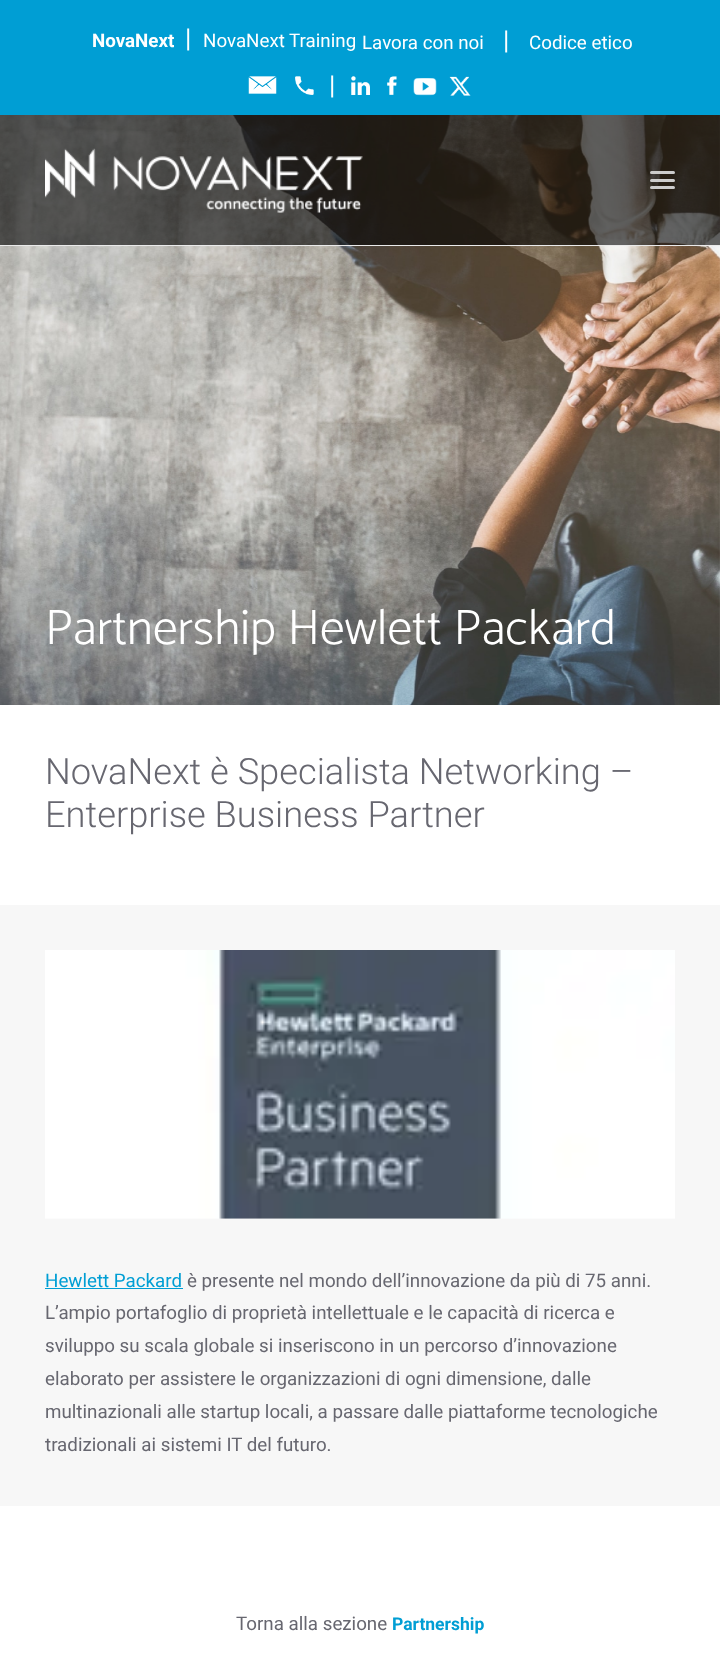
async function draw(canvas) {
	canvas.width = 720;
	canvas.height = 1663;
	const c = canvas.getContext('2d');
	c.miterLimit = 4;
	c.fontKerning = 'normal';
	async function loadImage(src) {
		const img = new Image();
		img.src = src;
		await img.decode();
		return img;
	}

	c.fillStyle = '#fff';
	c.fillRect(0, 0, 720, 1663);
	c.fillStyle = '#009ed4';
	c.fillRect(0, 0, 720, 115);
	c.font = 'bold 18.75px Roboto';
	c.fillStyle = '#fff';
	c.fillText('NovaNext', 92, 47);
	c.font = '26px Roboto';
	c.fillText('|', 185, 47);
	c.font = '18.75px Roboto';
	c.fillText('NovaNext Training', 203, 47);
	c.fillText('Lavora con noi', 362, 49);
	c.font = '26px Roboto';
	c.fillText('|', 503, 49);
	c.font = '18.75px Roboto';
	c.fillText('Codice etico', 529, 49);
	c.drawImage(await loadImage('img1.png'), 248, 76, 29, 18);
	c.drawImage(await loadImage('img2.png'), 295, 76, 19, 19);
	c.font = '26px Roboto';
	c.fillText('|', 329, 94);
	c.drawImage(await loadImage('img3.png'), 351, 76, 19, 19);
	c.drawImage(await loadImage('img4.png'), 387, 76, 10, 19);
	c.drawImage(await loadImage('img5.png'), 413, 78, 24, 18);
	c.drawImage(await loadImage('img6.png'), 449, 76, 22, 20);
	c.drawImage(await loadImage('img8.png'), 0, 115, 720, 590);
	c.fillStyle = '#00000099';
	c.fillRect(0, 115, 720, 130);
	c.fillStyle = '#eaeaea';
	c.fillRect(0, 245, 720, 1);
	c.drawImage(await loadImage('img7.png'), 45, 148, 318, 65);
	c.fillStyle = '#ccc';
	c.beginPath();
	c.roundRect(650, 179, 25, 3, 1.5);
	c.fill();
	c.beginPath();
	c.roundRect(650, 171, 25, 3, 1.5);
	c.fill();
	c.beginPath();
	c.roundRect(650, 186, 25, 3, 1.5);
	c.fill();
	c.font = '300 50px Catamaran';
	c.fillStyle = '#fff';
	c.fillText('Partnership Hewlett Packard', 45, 644);
	c.font = '300 36.25px Roboto';
	c.fillStyle = '#676770';
	c.fillText('NovaNext è Specialista Networking –', 45, 784);
	c.fillText('Enterprise Business Partner', 45, 827);
	c.fillStyle = '#f7f7f7';
	c.fillRect(0, 905, 720, 601);
	c.drawImage(await loadImage('img9.png'), 45, 950, 630, 269);
	c.font = '18.75px Roboto';
	c.fillStyle = '#009ed4';
	c.fillText('Hewlett Packard', 45, 1287);
	c.fillRect(45, 1288, 138, 1);
	c.fillStyle = '#676770';
	for (const [text, x, y] of [
		['è presente nel mondo dell’innovazione da più di 75 anni.', 187, 1287],
		['L’ampio portafoglio di proprietà intellettuale e le capacità di ricerca e', 45, 1319],
		['sviluppo su scala globale si inseriscono in un percorso d’innovazione', 45, 1352],
		['elaborato per assistere le organizzazioni di ogni dimensione, dalle', 45, 1385],
		['multinazionali alle startup locali, a passare dalle piattaforme tecnologiche', 45, 1418],
		['tradizionali ai sistemi IT del futuro.', 45, 1451],
		['Torna alla sezione', 236, 1630],
	]) {
		c.fillText(text, x, y);
	}
	c.font = 'bold 17.5px Roboto';
	c.fillStyle = '#009ed4';
	c.fillText('Partnership', 392, 1630);
}

draw(document.querySelector('canvas'));
